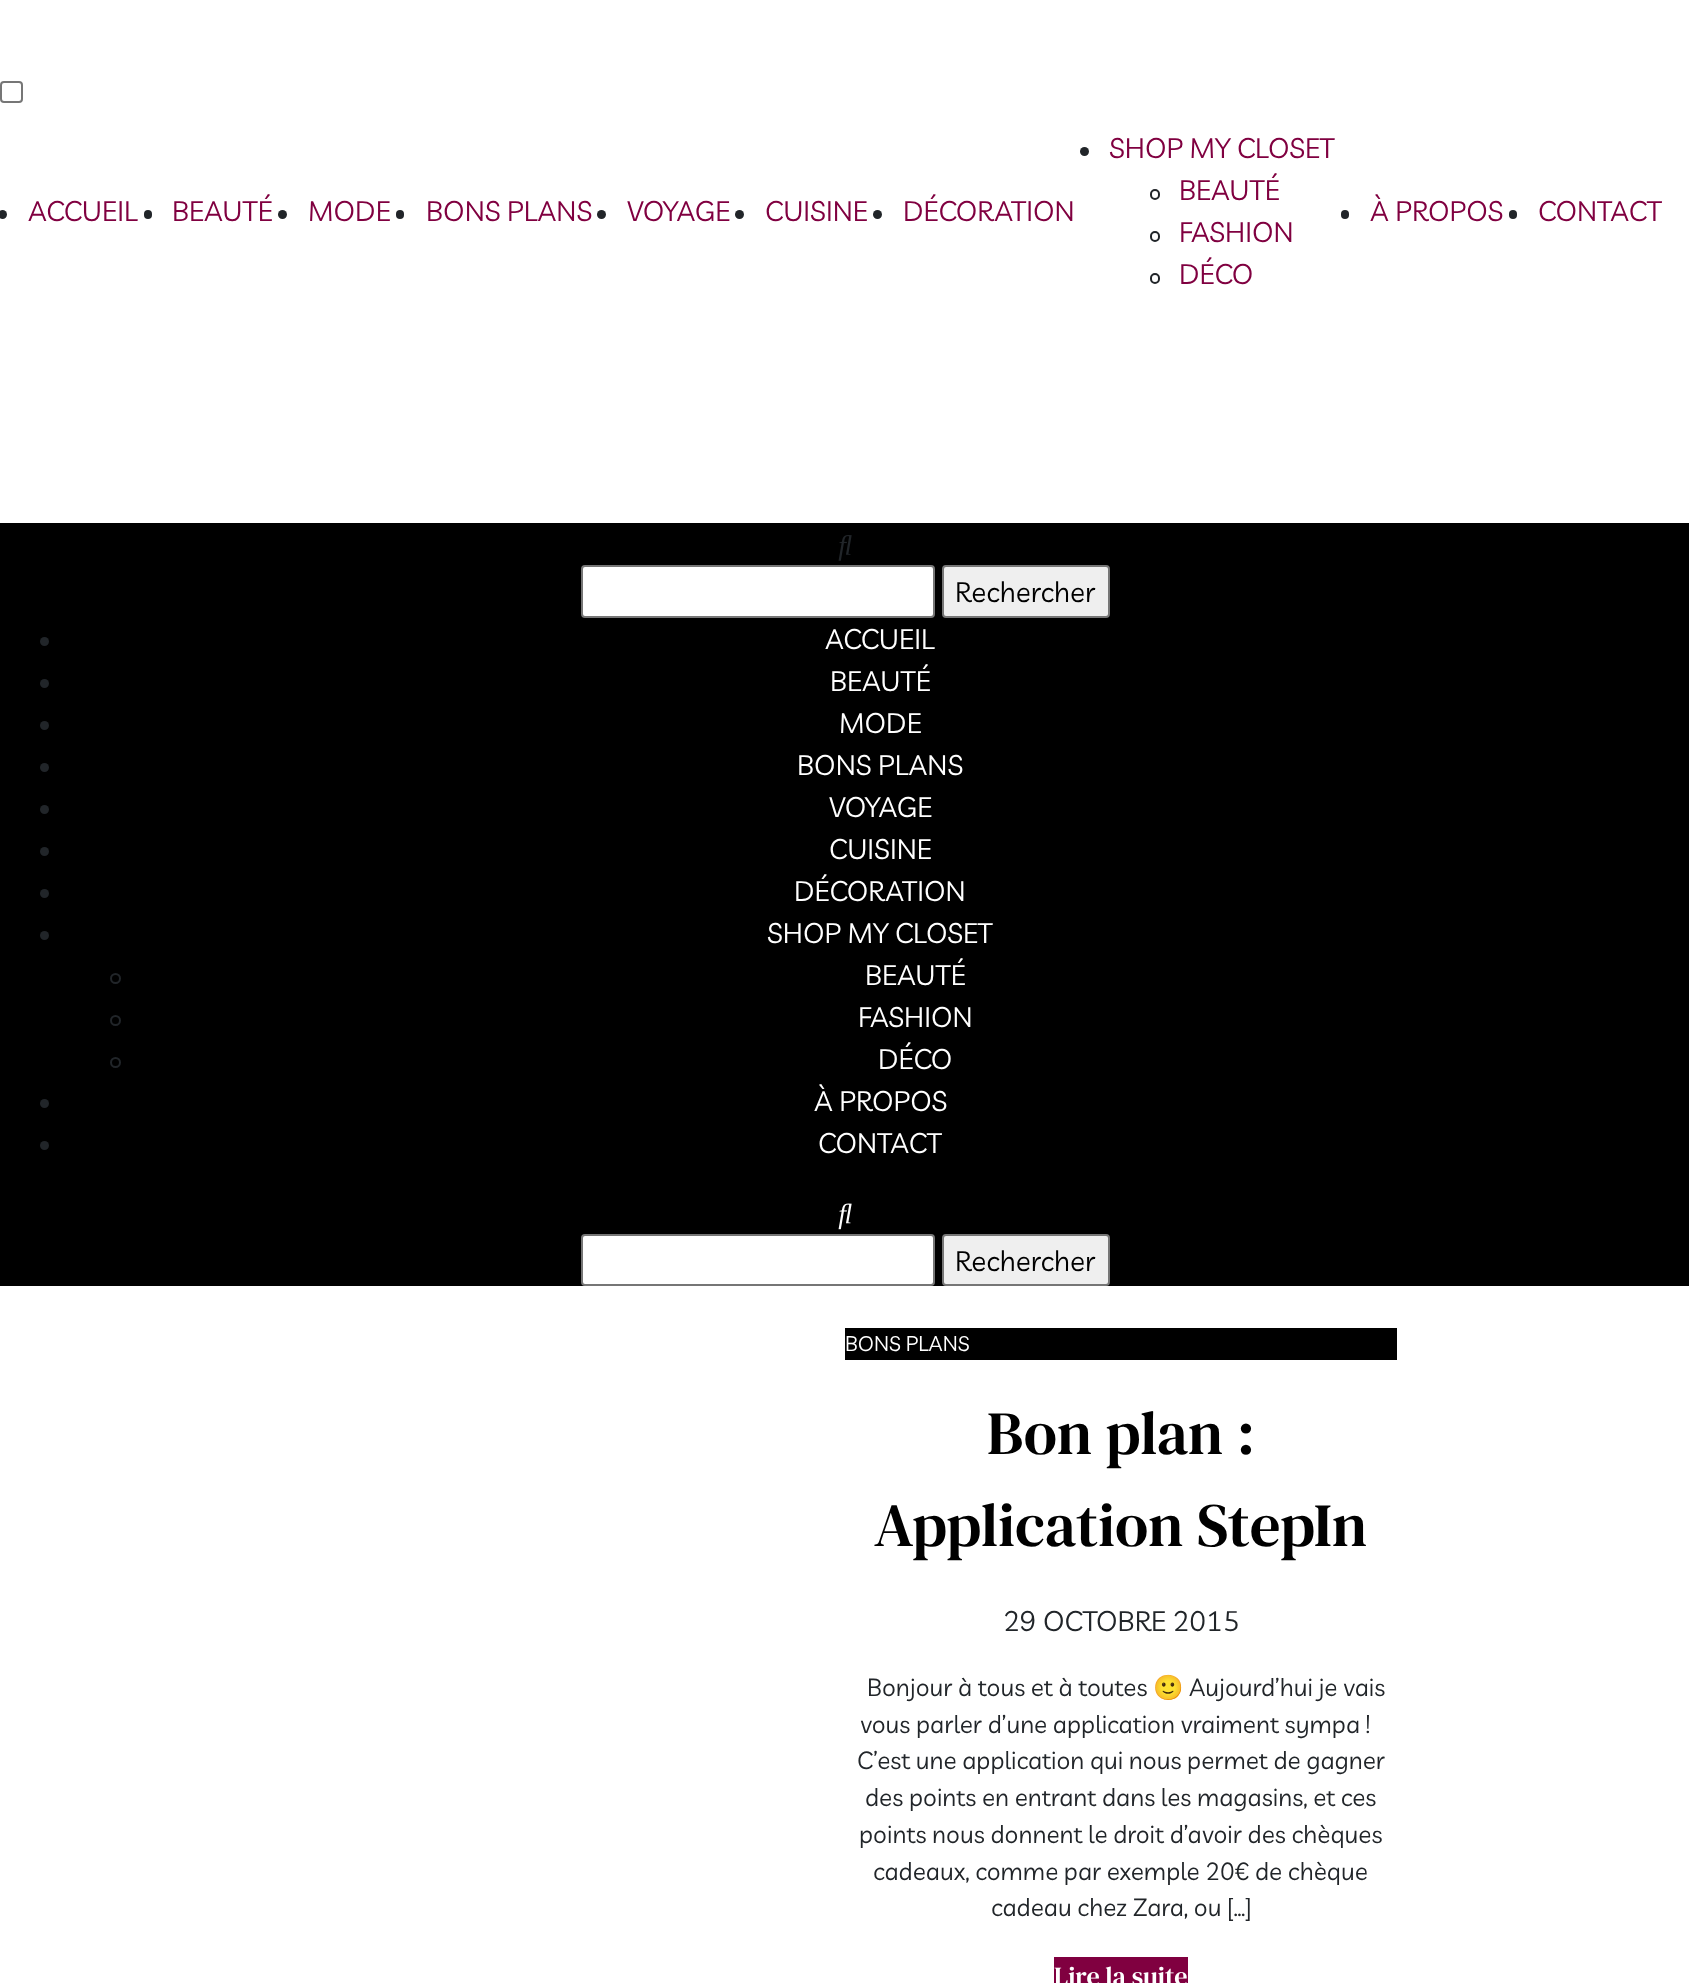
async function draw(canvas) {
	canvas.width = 1689;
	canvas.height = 1983;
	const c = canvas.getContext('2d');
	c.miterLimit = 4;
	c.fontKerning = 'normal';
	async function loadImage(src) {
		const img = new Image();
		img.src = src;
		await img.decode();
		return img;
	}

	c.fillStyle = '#fff';
	c.fillRect(0, 0, 1689, 1983);
	c.beginPath();
	c.roundRect(1, 82, 21, 20, 3);
	c.strokeStyle = '#767676';
	c.lineWidth = 2;
	c.stroke();
	c.fillStyle = '#212529';
	c.beginPath();
	c.arc(2.5, 214.5, 4.5, 0, 2 * Math.PI);
	c.fill();
	c.font = '28px Livvic';
	c.fillStyle = '#800040';
	c.fillText('ACCUEIL', 28, 221);
	c.fillStyle = '#212529';
	c.beginPath();
	c.roundRect(144, 210, 8, 9, 4);
	c.fill();
	c.fillStyle = '#800040';
	c.fillText('BEAUTÉ', 172, 221);
	c.fillStyle = '#212529';
	c.beginPath();
	c.arc(282.5, 214.5, 4.5, 0, 2 * Math.PI);
	c.fill();
	c.fillStyle = '#800040';
	c.fillText('MODE', 308, 221);
	c.fillStyle = '#212529';
	c.beginPath();
	c.roundRect(396, 210, 8, 9, 4);
	c.fill();
	c.fillStyle = '#800040';
	c.fillText('BONS PLANS', 426, 221);
	c.fillStyle = '#212529';
	c.beginPath();
	c.arc(601.5, 214.5, 4.5, 0, 2 * Math.PI);
	c.fill();
	c.fillStyle = '#800040';
	c.fillText('VOYAGE', 627, 221);
	c.fillStyle = '#212529';
	c.beginPath();
	c.arc(739.5, 214.5, 4.5, 0, 2 * Math.PI);
	c.fill();
	c.fillStyle = '#800040';
	c.fillText('CUISINE', 765, 221);
	c.fillStyle = '#212529';
	c.beginPath();
	c.arc(877.5, 214.5, 4.5, 0, 2 * Math.PI);
	c.fill();
	c.fillStyle = '#800040';
	c.fillText('DÉCORATION', 903, 221);
	c.fillStyle = '#212529';
	c.beginPath();
	c.arc(1084.5, 151.5, 4.5, 0, 2 * Math.PI);
	c.fill();
	c.fillStyle = '#800040';
	c.fillText('SHOP MY CLOSET', 1109, 158);
	c.beginPath();
	c.roundRect(1151, 190, 8, 9, 4);
	c.strokeStyle = '#212529';
	c.stroke();
	c.fillText('BEAUTÉ', 1179, 200);
	c.beginPath();
	c.roundRect(1151, 232, 8, 9, 4);
	c.stroke();
	c.fillText('FASHION', 1179, 242);
	c.beginPath();
	c.roundRect(1151, 274, 8, 9, 4);
	c.stroke();
	c.fillText('DÉCO', 1179, 284);
	c.fillStyle = '#212529';
	c.beginPath();
	c.roundRect(1341, 210, 8, 9, 4);
	c.fill();
	c.fillStyle = '#800040';
	c.fillText('À PROPOS', 1370, 221);
	c.fillStyle = '#212529';
	c.beginPath();
	c.roundRect(1509, 210, 8, 9, 4);
	c.fill();
	c.fillStyle = '#800040';
	c.fillText('CONTACT', 1538, 221);
	c.fillStyle = '#000';
	c.fillRect(0, 523, 1689, 763);
	c.drawImage(await loadImage('img1.png'), 838, 535, 14, 26);
	c.fillStyle = '#fff';
	c.beginPath();
	c.roundRect(582, 566, 352, 51, 3);
	c.fill();
	c.strokeStyle = '#767676';
	c.stroke();
	c.fillStyle = '#efefef';
	c.beginPath();
	c.roundRect(943, 566, 166, 51, 3);
	c.fill();
	c.stroke();
	c.fillStyle = '#000';
	c.fillText('Rechercher', 955, 602);
	c.fillStyle = '#212529';
	c.beginPath();
	c.arc(44.5, 641.5, 4.5, 0, 2 * Math.PI);
	c.fill();
	c.fillStyle = '#fff';
	c.fillText('ACCUEIL', 825, 649);
	c.fillStyle = '#212529';
	c.beginPath();
	c.arc(44.5, 683.5, 4.5, 0, 2 * Math.PI);
	c.fill();
	c.fillStyle = '#fff';
	c.fillText('BEAUTÉ', 830, 691);
	c.fillStyle = '#212529';
	c.beginPath();
	c.arc(44.5, 725.5, 4.5, 0, 2 * Math.PI);
	c.fill();
	c.fillStyle = '#fff';
	c.fillText('MODE', 839, 733);
	c.fillStyle = '#212529';
	c.beginPath();
	c.arc(44.5, 767.5, 4.5, 0, 2 * Math.PI);
	c.fill();
	c.fillStyle = '#fff';
	c.fillText('BONS PLANS', 797, 775);
	c.fillStyle = '#212529';
	c.beginPath();
	c.arc(44.5, 809.5, 4.5, 0, 2 * Math.PI);
	c.fill();
	c.fillStyle = '#fff';
	c.fillText('VOYAGE', 829, 817);
	c.fillStyle = '#212529';
	c.beginPath();
	c.arc(44.5, 851.5, 4.5, 0, 2 * Math.PI);
	c.fill();
	c.fillStyle = '#fff';
	c.fillText('CUISINE', 829, 859);
	c.fillStyle = '#212529';
	c.beginPath();
	c.arc(44.5, 893.5, 4.5, 0, 2 * Math.PI);
	c.fill();
	c.fillStyle = '#fff';
	c.fillText('DÉCORATION', 794, 901);
	c.fillStyle = '#212529';
	c.beginPath();
	c.arc(44.5, 935.5, 4.5, 0, 2 * Math.PI);
	c.fill();
	c.fillStyle = '#fff';
	c.fillText('SHOP MY CLOSET', 767, 943);
	c.beginPath();
	c.arc(115.5, 978.5, 4.5, 0, 2 * Math.PI);
	c.strokeStyle = '#212529';
	c.stroke();
	c.fillText('BEAUTÉ', 865, 985);
	c.beginPath();
	c.arc(115.5, 1020.5, 4.5, 0, 2 * Math.PI);
	c.stroke();
	c.fillText('FASHION', 858, 1027);
	c.beginPath();
	c.arc(115.5, 1062.5, 4.5, 0, 2 * Math.PI);
	c.stroke();
	c.fillText('DÉCO', 878, 1069);
	c.fillStyle = '#212529';
	c.beginPath();
	c.arc(44.5, 1103.5, 4.5, 0, 2 * Math.PI);
	c.fill();
	c.fillStyle = '#fff';
	c.fillText('À PROPOS', 814, 1111);
	c.fillStyle = '#212529';
	c.beginPath();
	c.arc(44.5, 1145.5, 4.5, 0, 2 * Math.PI);
	c.fill();
	c.fillStyle = '#fff';
	c.fillText('CONTACT', 818, 1153);
	c.drawImage(await loadImage('img2.png'), 838, 1203, 14, 27);
	c.beginPath();
	c.roundRect(582, 1235, 352, 50, 3);
	c.fill();
	c.strokeStyle = '#767676';
	c.stroke();
	c.fillStyle = '#efefef';
	c.beginPath();
	c.roundRect(943, 1235, 166, 50, 3);
	c.fill();
	c.stroke();
	c.fillStyle = '#000';
	c.fillText('Rechercher', 955, 1271);
	c.fillRect(845, 1328, 552, 32);
	c.font = '21px Livvic';
	c.fillStyle = '#fff';
	c.fillText('BONS PLANS', 845, 1351);
	c.font = '61.25px DM Serif Text';
	c.fillStyle = '#000';
	c.fillText('Bon plan :', 987, 1454);
	c.fillText('Application StepIn', 874, 1546);
	c.font = '28px Livvic';
	c.fillStyle = '#212529';
	c.fillText('29 OCTOBRE 2015', 1003, 1631);
	c.font = '24.5px Livvic';
	c.fillText('Bonjour à tous et à toutes', 867, 1696);
	c.font = '24.5px Noto Color Emoji';
	c.fillText('🙂', 1153, 1696);
	c.font = '24.5px Livvic';
	for (const [text, x, y] of [
		['Aujourd’hui je vais', 1189, 1696],
		['vous parler d’une application vraiment sympa !', 860, 1733],
		['C’est une application qui nous permet de gagner', 857, 1769],
		['des points en entrant dans les magasins, et ces', 865, 1806],
		['points nous donnent le droit d’avoir des chèques', 859, 1843],
		['cadeaux, comme par exemple 20€ de chèque', 873, 1880],
		['cadeau chez Zara, ou […]', 991, 1916],
	]) {
		c.fillText(text, x, y);
	}
	c.fillStyle = '#800040';
	c.fillRect(1054, 1957, 134, 26);
	c.font = '26.25px DM Serif Text';
	c.fillStyle = '#fff';
	c.fillText('Lire la suite', 1054, 1985);
}

draw(document.querySelector('canvas'));
